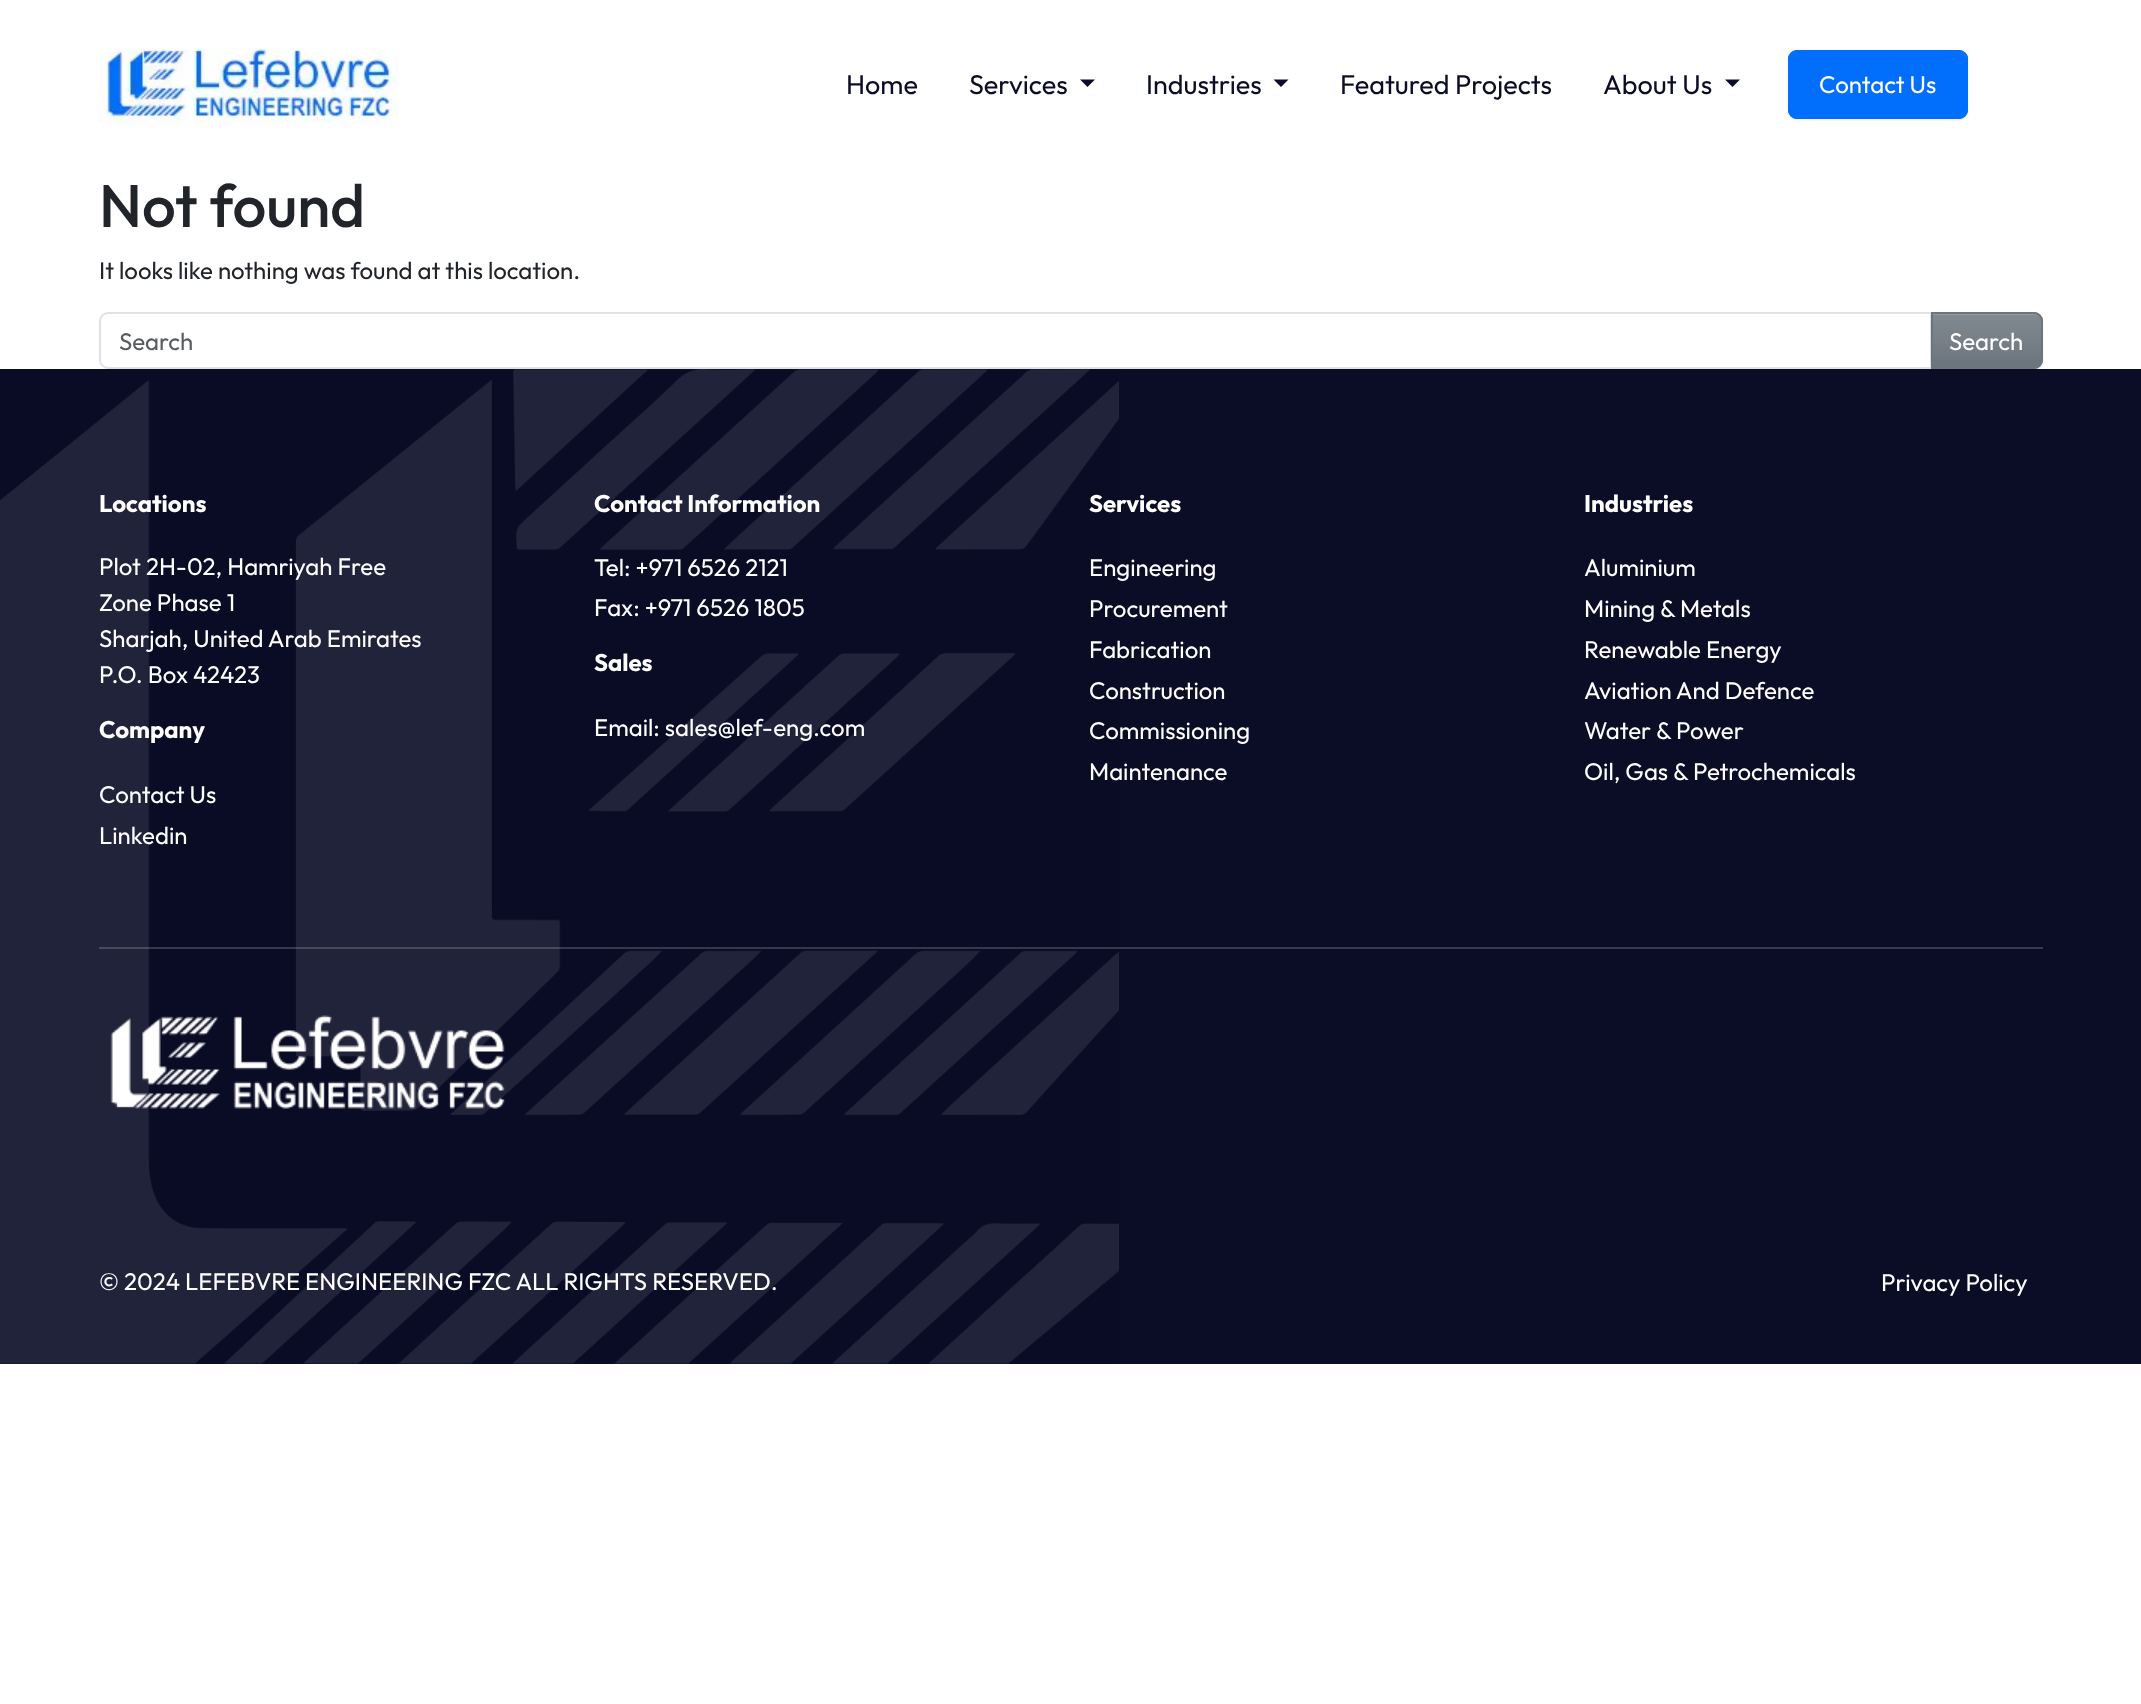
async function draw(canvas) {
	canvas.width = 2141;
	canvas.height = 1704;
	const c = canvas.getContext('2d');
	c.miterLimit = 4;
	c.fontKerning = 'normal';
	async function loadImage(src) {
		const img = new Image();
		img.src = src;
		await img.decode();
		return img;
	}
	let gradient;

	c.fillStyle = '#fff';
	c.fillRect(0, 0, 2141, 1704);
	c.drawImage(await loadImage('img1.png'), 99, 48, 300, 80);
	c.font = '27px Outfit';
	c.fillStyle = '#0b0d26';
	c.fillText('Home', 846, 94);
	c.fillText('Services', 969, 94);
	c.beginPath();
	c.moveTo(1080, 79.5);
	c.lineTo(1095, 79.5);
	c.lineTo(1087.5, 87);
	c.closePath();
	c.fill();
	c.fillText('Industries', 1146, 94);
	c.beginPath();
	c.moveTo(1273.5, 79.5);
	c.lineTo(1288.5, 79.5);
	c.lineTo(1281, 87);
	c.closePath();
	c.fill();
	c.fillText('Featured Projects', 1340, 94);
	c.fillText('About Us', 1603, 94);
	c.beginPath();
	c.moveTo(1725, 79.5);
	c.lineTo(1740, 79.5);
	c.lineTo(1732.5, 87);
	c.closePath();
	c.fill();
	c.fillStyle = '#00000012';
	c.filter = 'blur(1px)';
	c.beginPath();
	c.roundRect(1788, 51, 180, 69, 9);
	c.fill();
	c.filter = 'none';
	c.fillStyle = '#016ffc';
	c.beginPath();
	c.roundRect(1788, 50, 180, 69, 9);
	c.fill();
	c.fillStyle = '#2785fc';
	c.beginPath();
	c.moveTo(1797, 52);
	c.lineTo(1959, 52);
	c.bezierCurveTo(1963, 52, 1966, 56, 1966, 60);
	c.lineTo(1966, 111);
	c.lineTo(1966, 114);
	c.bezierCurveTo(1966, 112, 1967, 111, 1967, 109);
	c.lineTo(1967, 59);
	c.bezierCurveTo(1967, 55, 1963, 51, 1959, 51);
	c.lineTo(1798, 51);
	c.bezierCurveTo(1794, 51, 1790, 55, 1790, 59);
	c.lineTo(1790, 60);
	c.bezierCurveTo(1790, 56, 1793, 52, 1797, 52);
	c.closePath();
	c.fill();
	c.beginPath();
	c.roundRect(1789, 51, 178, 67, 8);
	c.strokeStyle = '#016ffc';
	c.lineWidth = 2;
	c.stroke();
	c.font = '24px Outfit';
	c.fillStyle = '#fff';
	c.fillText('Contact Us', 1819, 93);
	c.font = '500 60px Outfit';
	c.fillStyle = '#212529';
	c.fillText('Not found', 99, 227);
	c.font = '24px Outfit';
	c.fillText('It looks like nothing was found at this location.', 99, 279);
	c.beginPath();
	c.roundRect(100, 313, 1831, 55, [8, 0, 0, 8]);
	c.strokeStyle = '#dee2e6';
	c.stroke();
	c.fillStyle = '#595c5f';
	c.fillText('Search', 119, 350);
	c.fillStyle = '#00000012';
	c.filter = 'blur(1px)';
	c.beginPath();
	c.roundRect(1931, 314, 112, 57, 9);
	c.fill();
	c.filter = 'none';
	c.fillStyle = '#6c757d';
	c.beginPath();
	c.roundRect(1931, 312, 112, 57, [0, 9, 9, 0]);
	c.fill();
	c.save();
	c.beginPath();
	c.roundRect(1931, 312, 112, 57, [0, 9, 9, 0]);
	c.clip();
	gradient = c.createLinearGradient(1987, 314, 1987, 368);
	gradient.addColorStop(0, '#ffffff26');
	gradient.addColorStop(1, '#ffffff00');
	c.fillStyle = gradient;
	c.fillRect(1933, 314, 110, 46);
	c.restore();
	c.fillStyle = '#959ba1';
	c.beginPath();
	c.moveTo(1932, 315);
	c.lineTo(2034, 315);
	c.bezierCurveTo(2038, 315, 2042, 318, 2042, 322);
	c.bezierCurveTo(2042, 318, 2038, 314, 2034, 314);
	c.lineTo(1932, 314);
	c.closePath();
	c.fill();
	c.beginPath();
	c.roundRect(1932, 313, 110, 55, [0, 8, 8, 0]);
	c.strokeStyle = '#6c757d';
	c.stroke();
	c.fillStyle = '#fff';
	c.fillText('Search', 1949, 350);
	c.fillStyle = '#0b0d26';
	c.fillRect(0, 369, 2141, 995);
	c.drawImage(await loadImage('img2.png'), 0, 369, 1119, 995);
	c.fillStyle = '#0b0d26db';
	c.fillRect(0, 369, 1119, 995);
	c.fillStyle = '#ffffff2e';
	c.fillRect(99, 947, 1944, 2);
	c.font = 'bold 24px Outfit';
	c.fillStyle = '#fff';
	c.fillText('Locations', 99, 512);
	c.font = '24px Outfit';
	for (const [text, x, y] of [
		['Plot 2H-02, Hamriyah Free', 99, 575],
		['Zone Phase 1', 99, 611],
		['Sharjah, United Arab Emirates', 99, 647],
		['P.O. Box 42423', 99, 683],
	]) {
		c.fillText(text, x, y);
	}
	c.font = 'bold 24px Outfit';
	c.fillText('Company', 99, 738);
	c.font = '24px Outfit';
	c.fillText('Contact Us', 99, 803);
	c.fillText('Linkedin', 99, 844);
	c.font = 'bold 24px Outfit';
	c.fillText('Contact Information', 594, 512);
	c.font = '24px Outfit';
	c.fillText('Tel: +971 6526 2121', 594, 576);
	c.fillText('Fax: +971 6526 1805', 594, 616);
	c.font = 'bold 24px Outfit';
	c.fillText('Sales', 594, 671);
	c.font = '24px Outfit';
	c.fillText('Email: sales@lef-eng.com', 594, 736);
	c.font = 'bold 24px Outfit';
	c.fillText('Services', 1089, 512);
	c.font = '24px Outfit';
	for (const [text, x, y] of [
		['Engineering', 1089, 576],
		['Procurement', 1089, 617],
		['Fabrication', 1089, 658],
		['Construction', 1089, 699],
		['Commissioning', 1089, 739],
		['Maintenance', 1089, 780],
	]) {
		c.fillText(text, x, y);
	}
	c.font = 'bold 24px Outfit';
	c.fillText('Industries', 1584, 512);
	c.font = '24px Outfit';
	for (const [text, x, y] of [
		['Aluminium', 1584, 576],
		['Mining & Metals', 1584, 617],
		['Renewable Energy', 1584, 658],
		['Aviation And Defence', 1584, 699],
		['Water & Power', 1584, 739],
		['Oil, Gas & Petrochemicals', 1584, 780],
	]) {
		c.fillText(text, x, y);
	}
	c.drawImage(await loadImage('img3.png'), 110, 1015, 395, 94);
	c.fillText('© 2024 LEFEBVRE ENGINEERING FZC ALL RIGHTS RESERVED.', 99, 1290);
	c.fillText('Privacy Policy', 1881, 1291);
}

draw(document.querySelector('canvas'));
